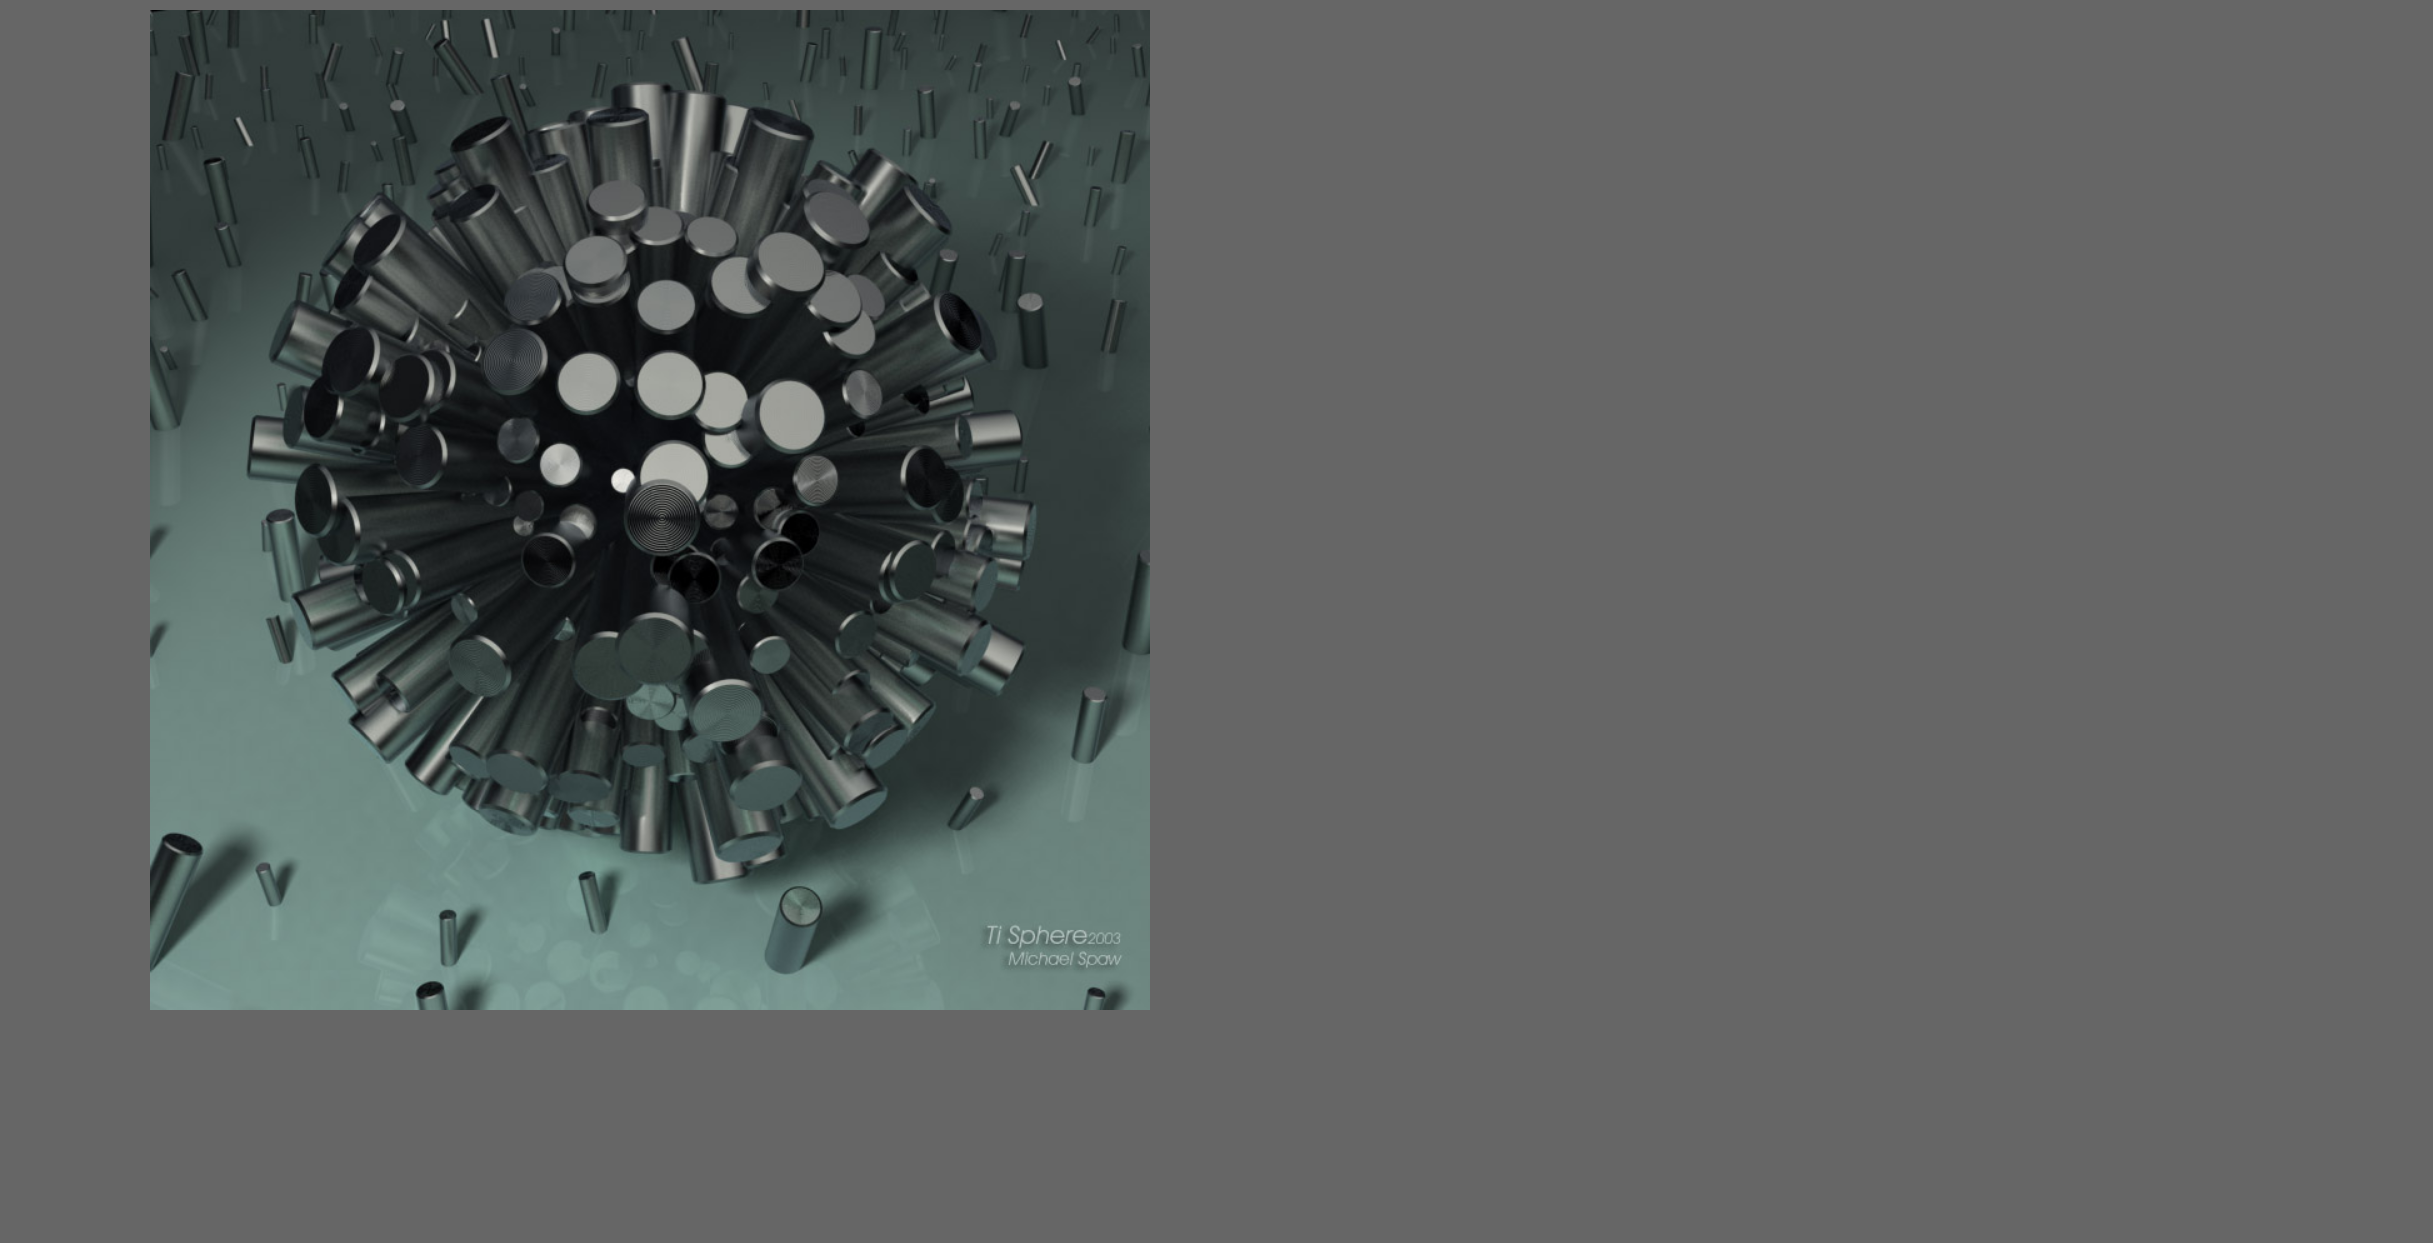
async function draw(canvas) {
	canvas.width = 2433;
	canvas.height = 1243;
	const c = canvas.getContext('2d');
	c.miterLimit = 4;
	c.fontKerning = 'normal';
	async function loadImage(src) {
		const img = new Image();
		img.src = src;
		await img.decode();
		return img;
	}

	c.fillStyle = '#666';
	c.fillRect(0, 0, 2433, 1243);
	c.drawImage(await loadImage('img1.png'), 150, 10, 1000, 1000);
}

draw(document.querySelector('canvas'));
